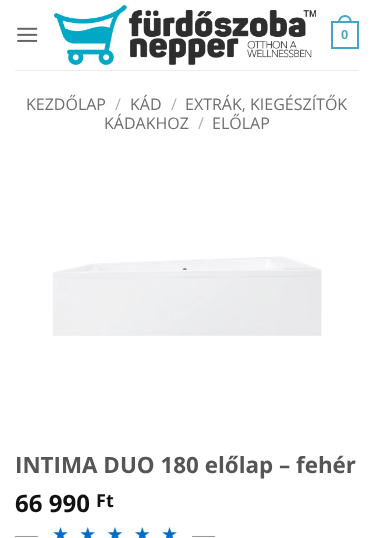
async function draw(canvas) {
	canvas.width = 374;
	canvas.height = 538;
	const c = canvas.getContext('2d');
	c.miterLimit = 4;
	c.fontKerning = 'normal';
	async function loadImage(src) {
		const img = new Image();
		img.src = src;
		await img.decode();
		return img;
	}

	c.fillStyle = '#fff';
	c.fillRect(0, 0, 374, 538);
	c.drawImage(await loadImage('img1.png'), 17, 27, 21, 15);
	c.drawImage(await loadImage('img2.png'), 54, 5, 262, 60);
	c.strokeStyle = '#43a6c4';
	c.lineWidth = 2;
	c.strokeRect(332, 22, 26, 26);
	c.fillStyle = '#43a6c4';
	c.beginPath();
	c.moveTo(345, 15);
	c.bezierCurveTo(349.5, 15, 352, 19, 352, 23);
	c.lineTo(338, 23);
	c.bezierCurveTo(338, 19, 340.5, 15, 345, 15);
	c.closePath();
	c.moveTo(345, 17);
	c.bezierCurveTo(348.5, 17, 350, 20, 350, 23);
	c.lineTo(340, 23);
	c.bezierCurveTo(340, 20, 341.5, 17, 345, 17);
	c.closePath();
	c.fill('evenodd');
	c.font = 'bold 13px Liberation Sans';
	c.fillText('0', 341, 39);
	c.fillStyle = '#ededed';
	c.fillRect(15, 70, 344, 1);
	c.font = '16px Open Sans';
	c.fillStyle = '#6e6e6e';
	c.fillText('KEZDŐLAP', 26, 110);
	c.fillStyle = '#b2b2b2';
	c.fillText('/', 115, 110);
	c.fillStyle = '#6e6e6e';
	c.fillText('KÁD', 130, 110);
	c.fillStyle = '#b2b2b2';
	c.fillText('/', 171, 110);
	c.fillStyle = '#6e6e6e';
	c.fillText('EXTRÁK, KIEGÉSZÍTŐK', 185, 110);
	c.fillText('KÁDAKHOZ', 104, 129);
	c.fillStyle = '#b2b2b2';
	c.fillText('/', 198, 129);
	c.fillStyle = '#6e6e6e';
	c.fillText('ELŐLAP', 212, 129);
	c.drawImage(await loadImage('img3.png'), 52, 256, 270, 80);
	c.font = 'bold 22.4px Open Sans';
	c.fillStyle = '#555';
	c.fillText('INTIMA DUO 180 előlap – fehér', 15, 473);
	c.font = 'bold 24px Open Sans';
	c.fillStyle = '#111';
	c.fillText('66 990', 15, 512);
	c.font = 'bold 18px Open Sans';
	c.fillText('Ft', 96, 507);
	c.drawImage(await loadImage('img4.png'), 15, 527, 200, 11);
}

draw(document.querySelector('canvas'));
